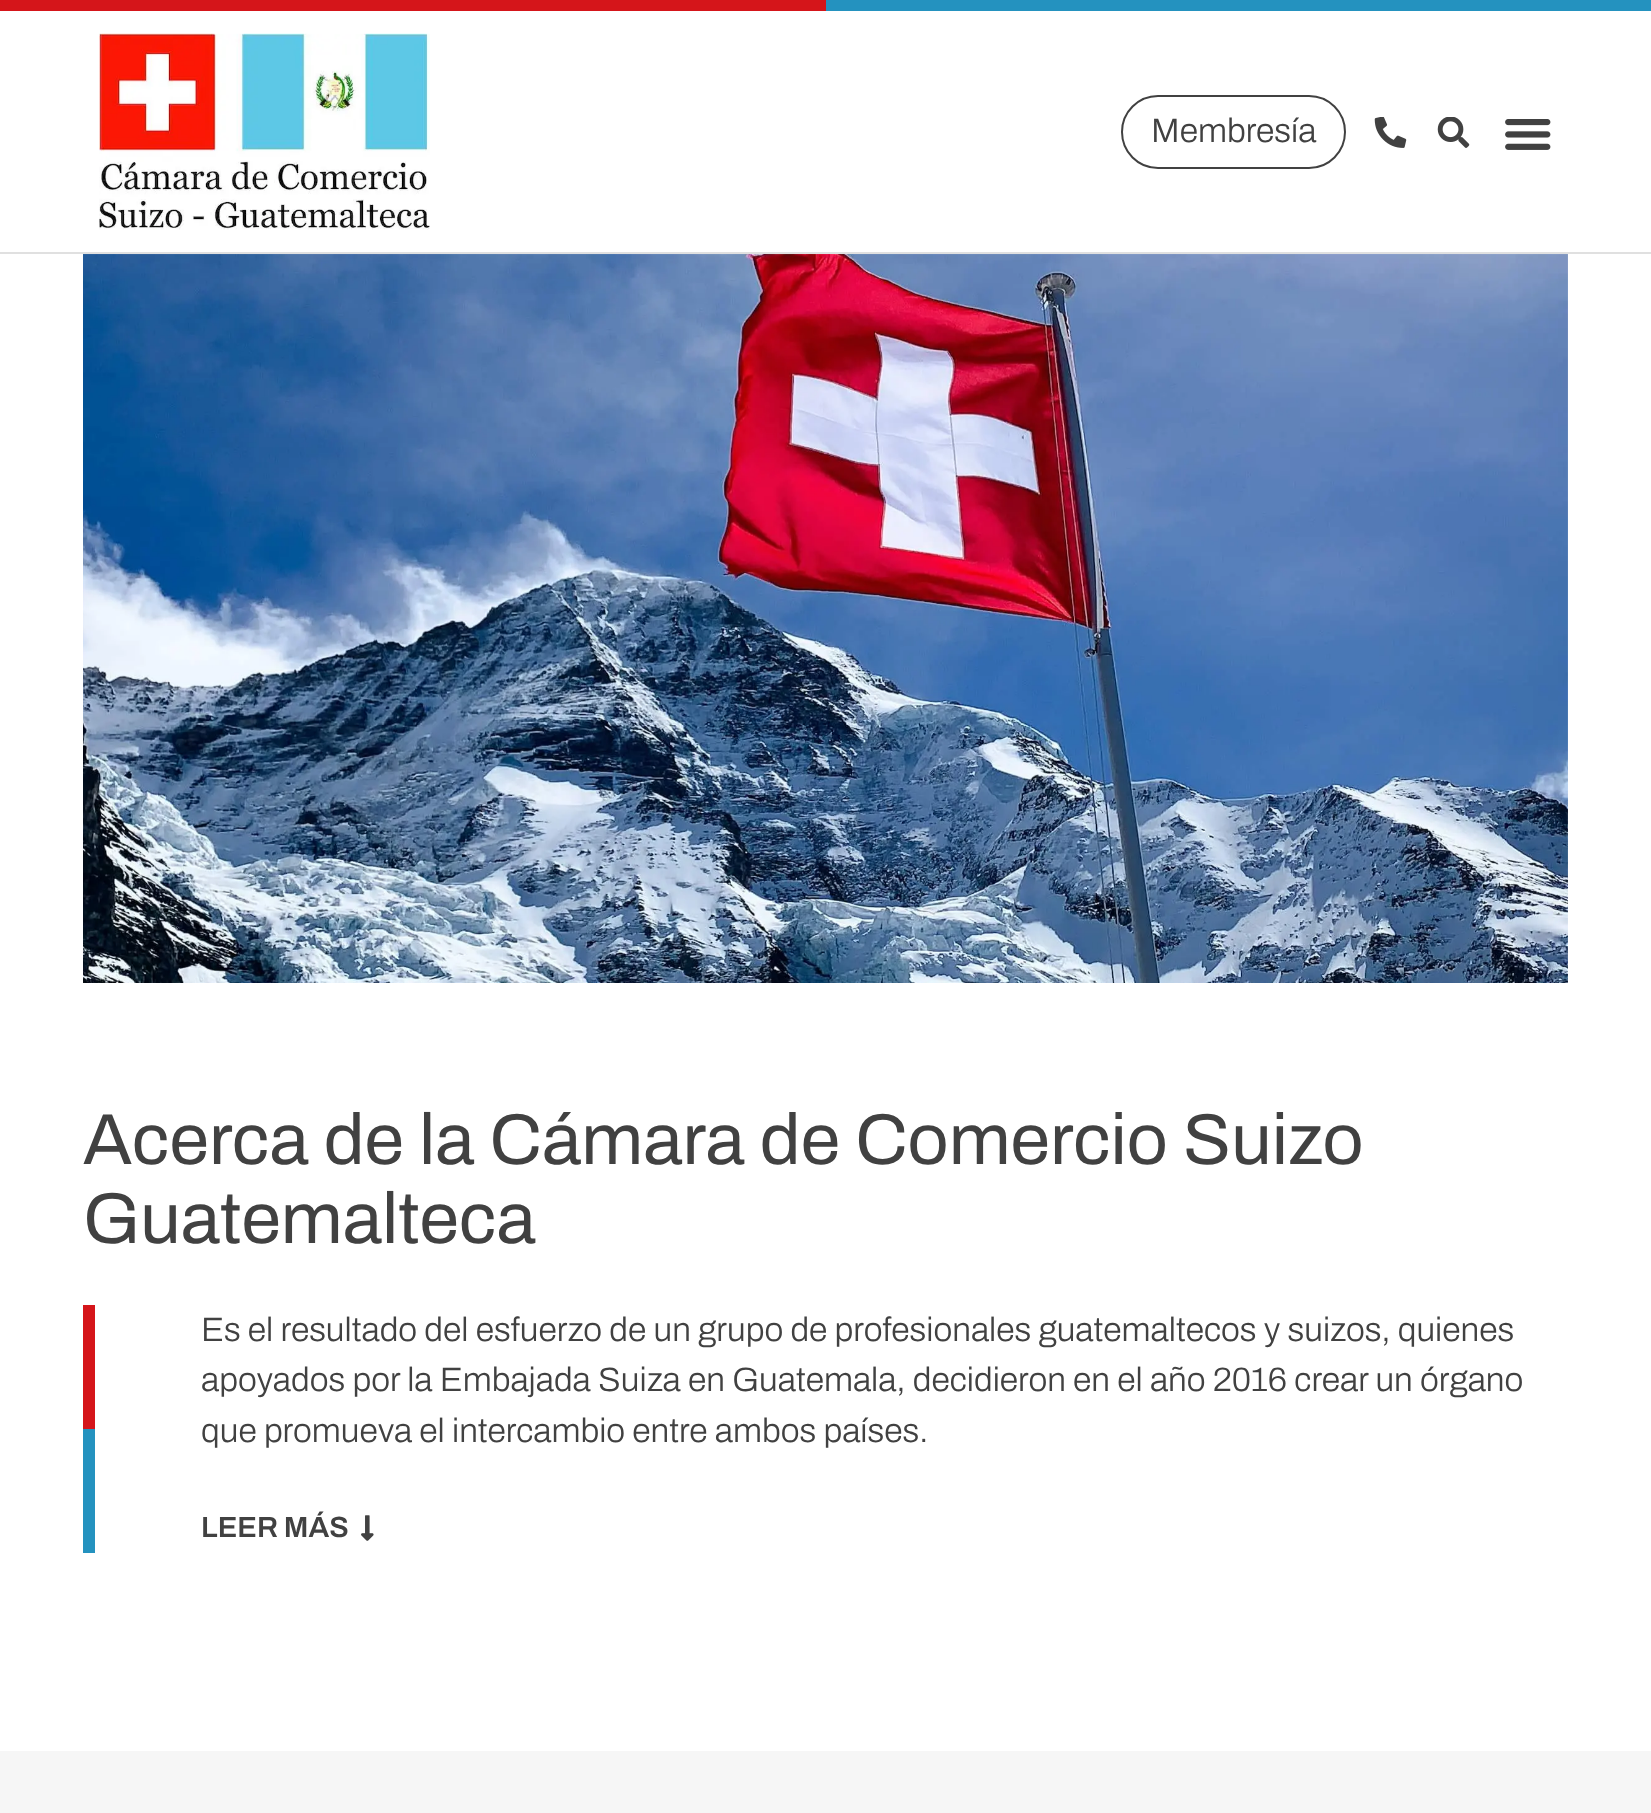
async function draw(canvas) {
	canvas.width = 1651;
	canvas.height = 1813;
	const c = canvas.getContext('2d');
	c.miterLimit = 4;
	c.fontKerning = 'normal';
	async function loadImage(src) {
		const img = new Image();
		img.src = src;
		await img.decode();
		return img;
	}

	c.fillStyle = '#fff';
	c.fillRect(0, 0, 1651, 1813);
	for (const [x, y, w, h, color] of [
		[0, 0, 826, 11, '#d5151a'],
		[826, 0, 825, 11, '#2492bf'],
		[0, 252, 1651, 2, '#e0e0e0'],
	]) {
		c.fillStyle = color;
		c.fillRect(x, y, w, h);
	}
	c.drawImage(await loadImage('img1.png'), 99, 33, 331, 197);
	c.beginPath();
	c.roundRect(1122, 96, 223, 72, 36);
	c.strokeStyle = '#414141';
	c.lineWidth = 2;
	c.stroke();
	c.font = '300 33.75px Archivo';
	c.fillStyle = '#414141';
	c.fillText('Membresía', 1151, 142);
	c.drawImage(await loadImage('img2.png'), 1374, 117, 33, 31);
	c.drawImage(await loadImage('img3.png'), 1437, 117, 33, 31);
	c.drawImage(await loadImage('img4.png'), 1505, 119, 46, 31);
	c.drawImage(await loadImage('img5.png'), 83, 254, 1485, 729);
	c.font = '72px Archivo';
	c.fillText('Acerca de la Cámara de Comercio Suizo', 83, 1164);
	c.fillText('Guatemalteca', 83, 1243);
	c.fillStyle = '#d5151a';
	c.fillRect(83, 1305, 12, 124);
	c.fillStyle = '#2492bf';
	c.fillRect(83, 1429, 12, 124);
	c.font = '300 33.75px Archivo';
	c.fillStyle = '#414141';
	for (const [text, x, y] of [
		['Es el resultado del esfuerzo de un grupo de profesionales guatemaltecos y suizos, quienes', 201, 1341],
		['apoyados por la Embajada Suiza en Guatemala, decidieron en el año 2016 crear un órgano', 201, 1391],
		['que promueva el intercambio entre ambos países.', 201, 1442],
	]) {
		c.fillText(text, x, y);
	}
	c.font = '600 29.25px Archivo';
	c.fillText('LEER MÁS', 201, 1537);
	c.drawImage(await loadImage('img6.png'), 361, 1515, 13, 26);
	c.fillStyle = '#f6f6f6';
	c.fillRect(0, 1751, 1651, 62);
}

draw(document.querySelector('canvas'));
